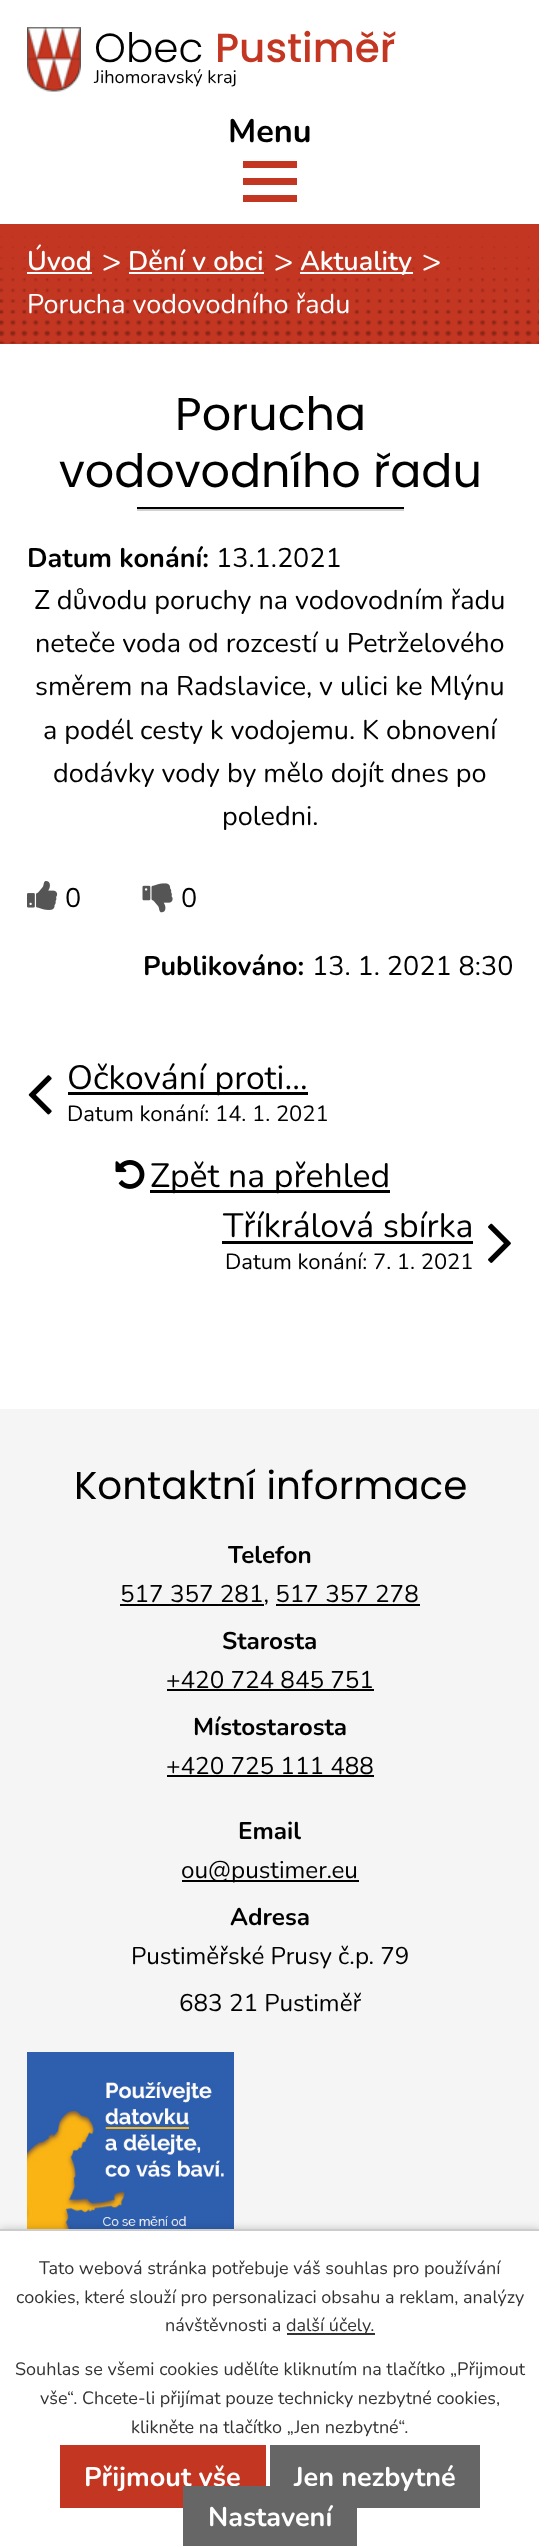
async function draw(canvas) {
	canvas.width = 539;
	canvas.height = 2546;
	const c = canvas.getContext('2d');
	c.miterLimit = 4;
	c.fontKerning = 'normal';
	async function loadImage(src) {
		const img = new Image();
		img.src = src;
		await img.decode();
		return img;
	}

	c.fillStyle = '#fff';
	c.fillRect(0, 0, 539, 2546);
	c.drawImage(await loadImage('img1.png'), 27, 27, 54, 65);
	c.font = '300 40.5px Poppins';
	c.fillStyle = '#000';
	c.fillText('Obec', 94, 62);
	c.font = '500 40.5px Poppins';
	c.fillStyle = '#c33622';
	c.fillText('Pustiměř', 215, 62);
	c.font = '18.25px Nunito';
	c.fillStyle = '#000';
	c.fillText('Jihomoravský kraj', 94, 83);
	c.font = 'bold 32.5px Nunito';
	c.fillText('Menu', 228, 142);
	c.fillStyle = '#c33622';
	c.beginPath();
	c.moveTo(243, 202);
	c.lineTo(243, 195);
	c.lineTo(297, 195);
	c.lineTo(297, 202);
	c.closePath();
	c.moveTo(243, 161);
	c.lineTo(297, 161);
	c.lineTo(297, 168);
	c.lineTo(243, 168);
	c.closePath();
	c.moveTo(243, 185);
	c.lineTo(243, 178);
	c.lineTo(297, 178);
	c.lineTo(297, 185);
	c.closePath();
	c.fill();
	c.fillRect(0, 224, 539, 120);
	c.drawImage(await loadImage('img2.png'), 0, 236, 539, 108);
	c.font = '600 27px Nunito';
	c.fillStyle = '#fff';
	c.fillText('Úvod', 27, 270);
	c.fillRect(27, 272, 65, 2);
	c.font = '32.5px Nunito';
	c.fillText('>', 102, 272);
	c.font = '600 27px Nunito';
	c.fillText('Dění v obci', 128, 270);
	c.fillRect(129, 272, 135, 2);
	c.font = '32.5px Nunito';
	c.fillText('>', 274, 272);
	c.fillRect(300, 272, 113, 2);
	c.font = '600 27px Nunito';
	c.fillText('Aktuality', 300, 270);
	c.font = '32.5px Nunito';
	c.fillText('>', 422, 272);
	c.font = '27px Nunito';
	c.fillText('Porucha vodovodního řadu', 27, 313);
	c.font = '46px Poppins';
	c.fillStyle = '#000';
	c.fillText('Porucha', 175, 430);
	c.fillText('vodovodního řadu', 59, 487);
	c.fillRect(137, 507, 267, 2);
	c.fillStyle = '#d1d1d1';
	c.fillRect(137, 509, 267, 2);
	c.font = 'bold 27px Nunito';
	c.fillStyle = '#000';
	c.fillText('Datum konání:', 27, 567);
	c.font = '27px Nunito';
	for (const [text, x, y] of [
		['13.1.2021', 216, 567],
		['Z důvodu poruchy na vodovodním řadu', 34, 609],
		['neteče voda od rozcestí u Petrželového', 35, 652],
		['směrem na Radslavice, v ulici ke Mlýnu', 35, 695],
		['a podél cesty k vodojemu. K obnovení', 43, 739],
		['dodávky vody by mělo dojít dnes po', 53, 782],
		['poledni.', 222, 825],
	]) {
		c.fillText(text, x, y);
	}
	c.drawImage(await loadImage('img3.png'), 27, 881, 31, 29);
	c.fillText('0', 65, 907);
	c.drawImage(await loadImage('img4.png'), 142, 883, 31, 30);
	c.fillText('0', 181, 907);
	c.font = 'bold 27px Nunito';
	c.fillText('Publikováno:', 143, 975);
	c.font = '27px Nunito';
	c.fillText('13. 1. 2021 8:30', 312, 975);
	c.drawImage(await loadImage('img5.png'), 28, 1075, 24, 40);
	c.fillRect(68, 1092, 240, 3);
	c.font = '33.75px Nunito';
	c.fillText('Očkování proti…', 67, 1089);
	c.font = '22px Nunito';
	c.fillText('Datum konání: 14. 1. 2021', 67, 1121);
	c.drawImage(await loadImage('img6.png'), 115, 1160, 30, 29);
	c.fillRect(150, 1190, 240, 3);
	c.font = '33.75px Nunito';
	c.fillText('Zpět na přehled', 150, 1187);
	c.fillText('Tříkrálová sbírka', 223, 1237);
	c.fillRect(222, 1241, 251, 3);
	c.font = '22px Nunito';
	c.fillText('Datum konání: 7. 1. 2021', 225, 1269);
	c.drawImage(await loadImage('img7.png'), 488, 1223, 23, 40);
	c.fillStyle = '#f5f5f5';
	c.fillRect(0, 1409, 539, 820);
	c.font = '38.9px Poppins';
	c.fillStyle = '#000';
	c.fillText('Kontaktní informace', 74, 1499);
	c.font = 'bold 24.25px Nunito';
	c.fillText('Telefon', 228, 1563);
	c.fillRect(120, 1604, 144, 2);
	c.font = '24.25px Nunito';
	c.fillText('517 357 281, 517 357 278', 120, 1602);
	c.fillRect(276, 1604, 144, 2);
	c.font = 'bold 24.25px Nunito';
	c.fillText('Starosta', 222, 1649);
	c.font = '24.25px Nunito';
	c.fillText('+420 724 845 751', 166, 1688);
	c.fillRect(167, 1689, 207, 2);
	c.font = 'bold 24.25px Nunito';
	c.fillText('Místostarosta', 193, 1735);
	c.font = '24.25px Nunito';
	c.fillText('+420 725 111 488', 166, 1774);
	c.fillRect(167, 1775, 207, 2);
	c.font = 'bold 24.25px Nunito';
	c.fillText('Email', 238, 1839);
	c.fillRect(182, 1880, 177, 2);
	c.font = '24.25px Nunito';
	c.fillText('ou@pustimer.eu', 181, 1878);
	c.font = 'bold 24.25px Nunito';
	c.fillText('Adresa', 230, 1925);
	c.font = '24.25px Nunito';
	c.fillText('Pustiměřské Prusy č.p. 79', 131, 1964);
	c.fillText('683 21 Pustiměř', 179, 2011);
	c.drawImage(await loadImage('img8.png'), 27, 2052, 207, 177);
	c.fillStyle = '#00000033';
	c.filter = 'blur(4px)';
	c.beginPath();
	c.rect(0, 2229, 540, 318);
	c.fill();
	c.filter = 'none';
	c.fillStyle = '#fff';
	c.fillRect(0, 2231, 539, 315);
	c.fillStyle = '#ccc';
	c.fillRect(0, 2229, 539, 2);
	c.font = '18px Nunito';
	c.fillStyle = '#333';
	for (const [text, x, y] of [
		['Tato webová stránka potřebuje váš souhlas pro používání', 39, 2274],
		['cookies, které slouží pro personalizaci obsahu a reklam, analýzy', 16, 2303],
		['návštěvnosti a', 165, 2331],
	]) {
		c.fillText(text, x, y);
	}
	c.fillRect(287, 2333, 88, 2);
	for (const [text, x, y] of [
		['další účely.', 286, 2331],
		['Souhlas se všemi cookies udělíte kliknutím na tlačítko „Přijmout', 15, 2375],
		['vše“. Chcete-li přijímat pouze technicky nezbytné cookies,', 40, 2404],
		['klikněte na tlačítko „Jen nezbytné“.', 131, 2433],
	]) {
		c.fillText(text, x, y);
	}
	c.fillStyle = '#c33622';
	c.fillRect(60, 2445, 206, 63);
	c.font = 'bold 27px Nunito';
	c.fillStyle = '#fff';
	c.fillText('Přijmout vše', 84, 2486);
	c.fillStyle = '#666';
	c.fillRect(270, 2445, 210, 63);
	c.fillStyle = '#fff';
	c.fillText('Jen nezbytné', 294, 2486);
	c.fillStyle = '#666';
	c.fillRect(183, 2486, 174, 60);
	c.fillStyle = '#fff';
	c.fillText('Nastavení', 208, 2526);
}

draw(document.querySelector('canvas'));
